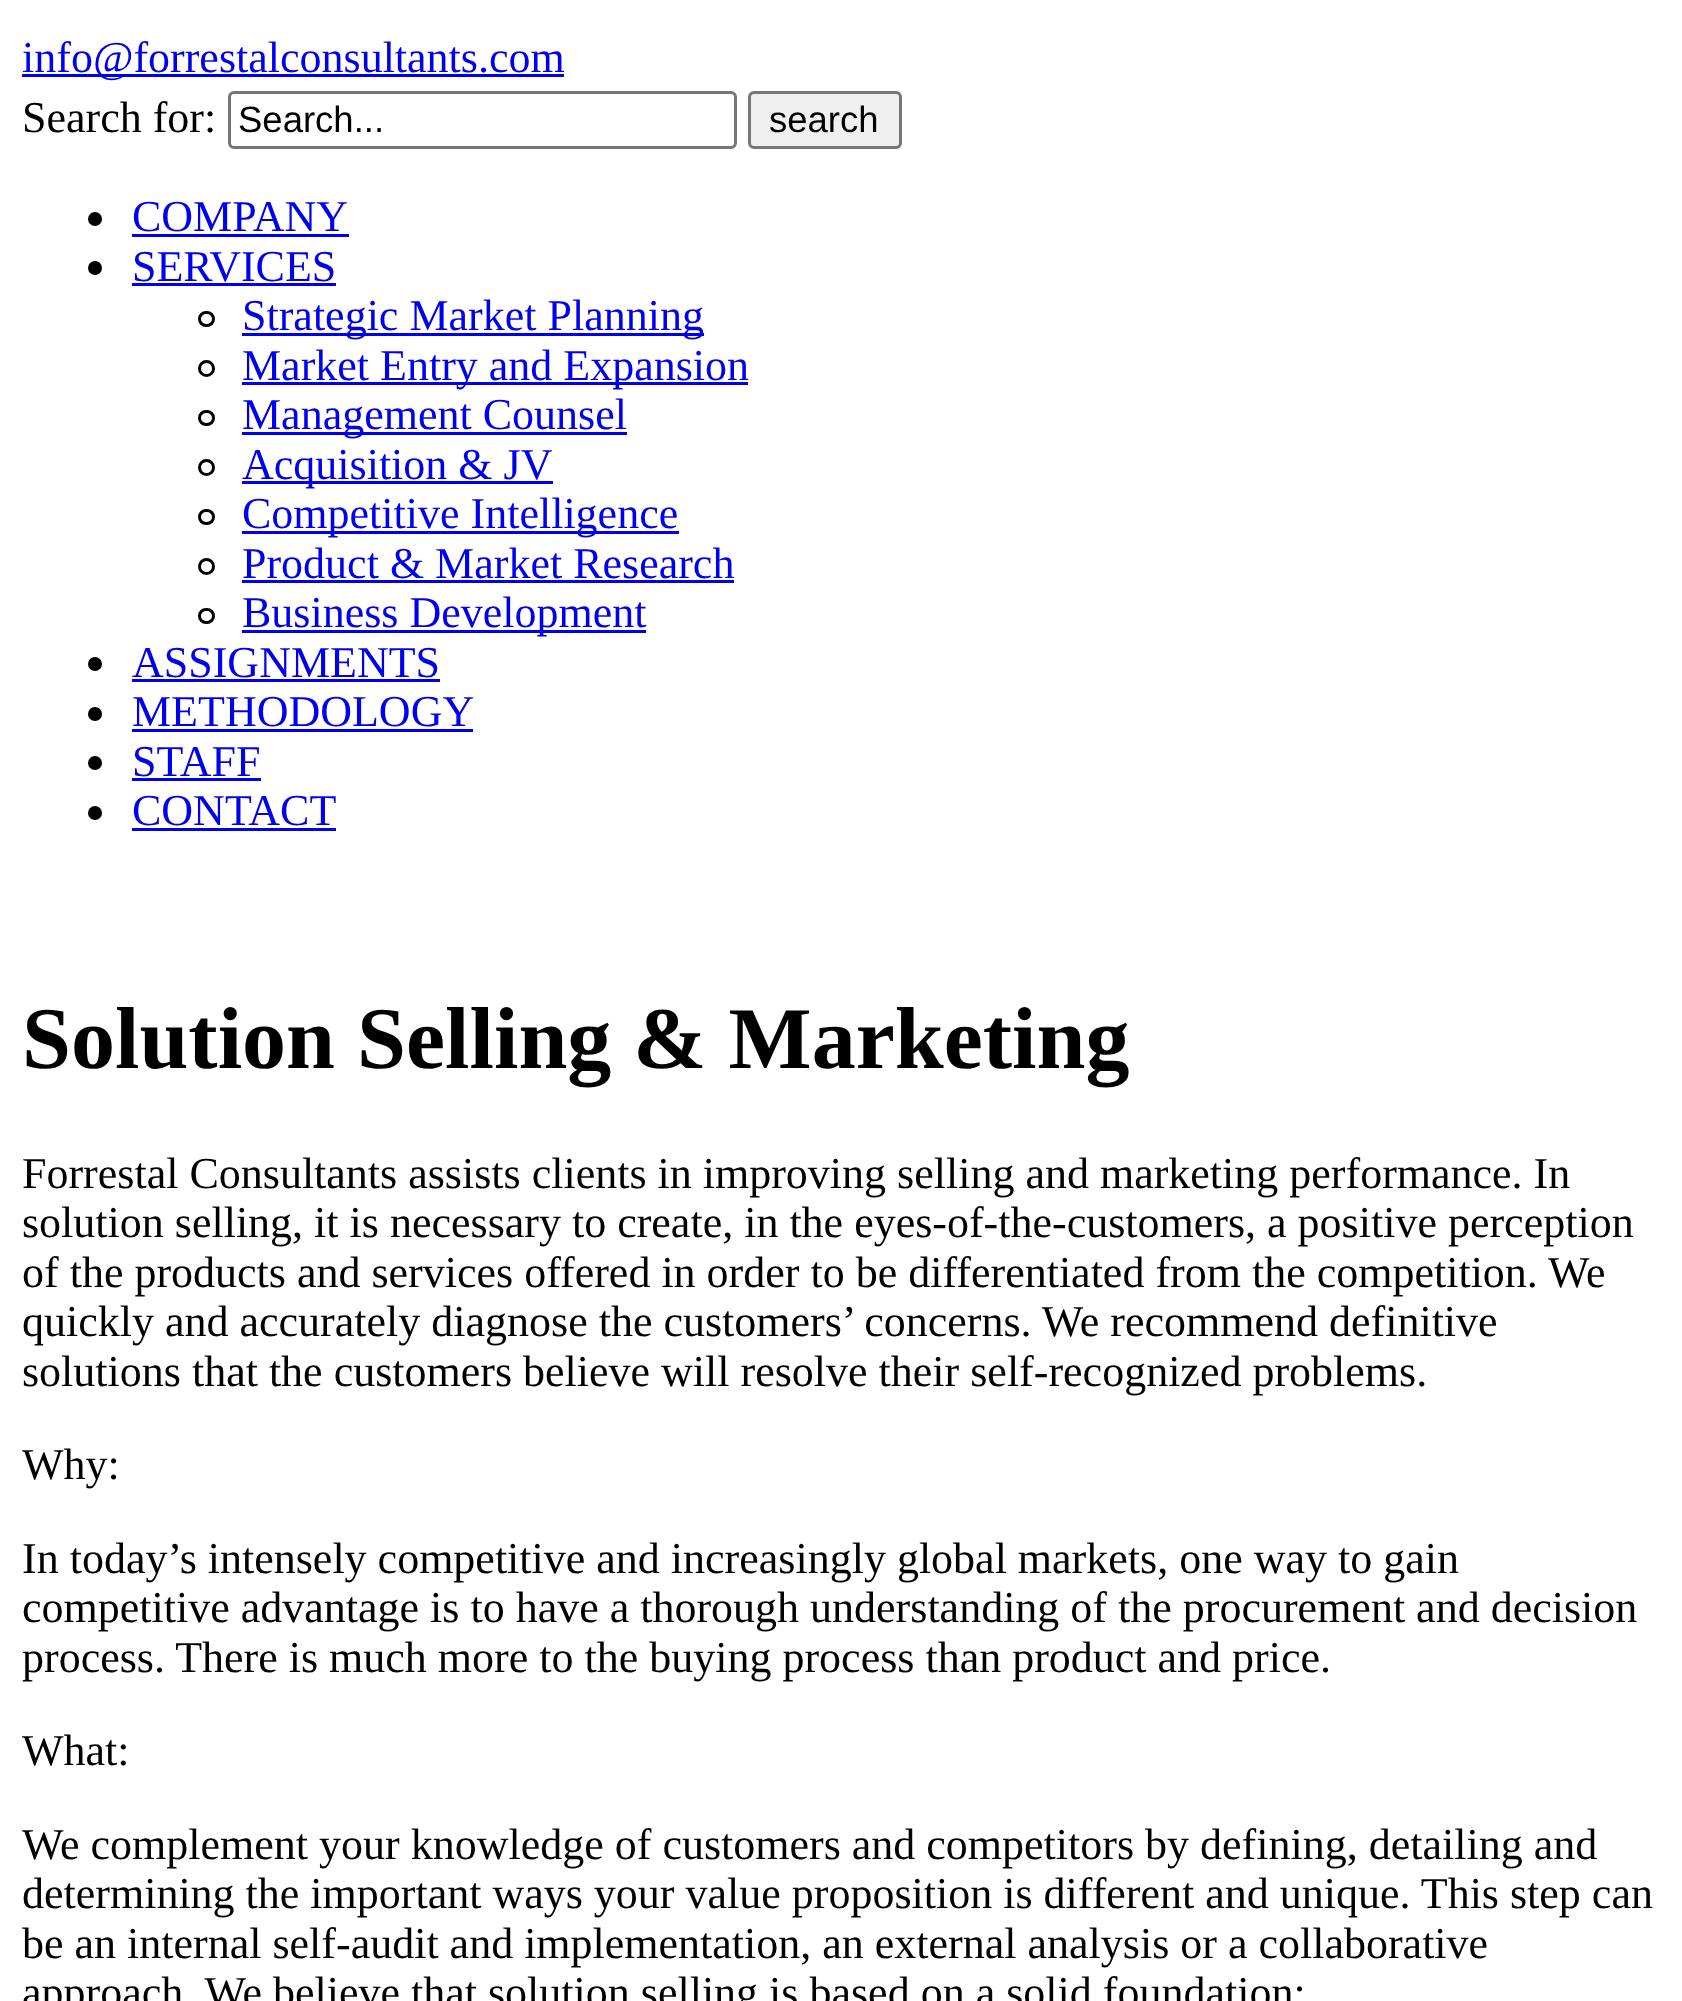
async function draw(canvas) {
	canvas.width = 1682;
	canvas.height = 2001;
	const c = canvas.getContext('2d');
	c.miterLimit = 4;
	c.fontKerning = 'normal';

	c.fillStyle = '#fff';
	c.fillRect(0, 0, 1682, 2001);
	c.fillStyle = '#00e';
	c.fillRect(22, 74, 542, 3);
	c.font = '44px Liberation Serif';
	c.fillText('info@forrestalconsultants.com', 22, 72);
	c.fillStyle = '#000';
	c.fillText('Search for:', 22, 132);
	c.beginPath();
	c.roundRect(229.5, 92.5, 506, 55, 4.5);
	c.strokeStyle = '#767676';
	c.lineWidth = 3;
	c.stroke();
	c.font = '36.5px Liberation Sans';
	c.fillText('Search...', 238, 132);
	c.fillStyle = '#efefef';
	c.beginPath();
	c.roundRect(749.5, 92.5, 151, 55, 4.5);
	c.fill();
	c.stroke();
	c.fillStyle = '#000';
	c.fillText('search', 769, 132);
	c.beginPath();
	c.arc(95, 219, 7, 0, 2 * Math.PI);
	c.fill();
	c.font = '44px Liberation Serif';
	c.fillStyle = '#00e';
	c.fillText('COMPANY', 132, 231);
	c.fillRect(132, 234, 217, 3);
	c.fillStyle = '#000';
	c.beginPath();
	c.arc(95, 268, 7, 0, 2 * Math.PI);
	c.fill();
	c.fillStyle = '#00e';
	c.fillText('SERVICES', 132, 281);
	c.fillRect(132, 283, 204, 3);
	c.beginPath();
	c.roundRect(199.5, 312.5, 14, 13, 6.5);
	c.strokeStyle = '#000';
	c.stroke();
	c.fillRect(242, 333, 462, 3);
	c.fillText('Strategic Market Planning', 242, 330);
	c.beginPath();
	c.arc(206.5, 368.5, 7, 0, 2 * Math.PI);
	c.stroke();
	c.fillRect(242, 382, 506, 3);
	c.fillText('Market Entry and Expansion', 242, 380);
	c.beginPath();
	c.roundRect(199.5, 411.5, 14, 13, 6.5);
	c.stroke();
	c.fillRect(242, 432, 385, 3);
	c.fillText('Management Counsel', 242, 429);
	c.beginPath();
	c.arc(206.5, 467.5, 7, 0, 2 * Math.PI);
	c.stroke();
	c.fillRect(242, 481, 311, 3);
	c.fillText('Acquisition & JV', 242, 479);
	c.beginPath();
	c.roundRect(199.5, 510.5, 14, 13, 6.5);
	c.stroke();
	c.fillRect(242, 531, 437, 3);
	c.fillText('Competitive Intelligence', 242, 528);
	c.beginPath();
	c.arc(206.5, 566.5, 7, 0, 2 * Math.PI);
	c.stroke();
	c.fillText('Product & Market Research', 242, 578);
	c.fillRect(242, 580, 492, 3);
	c.beginPath();
	c.roundRect(199.5, 609.5, 14, 13, 6.5);
	c.stroke();
	c.fillRect(242, 630, 404, 3);
	c.fillText('Business Development', 242, 627);
	c.fillStyle = '#000';
	c.beginPath();
	c.arc(95, 664, 7, 0, 2 * Math.PI);
	c.fill();
	c.fillStyle = '#00e';
	c.fillText('ASSIGNMENTS', 132, 677);
	c.fillRect(132, 679, 308, 3);
	c.fillStyle = '#000';
	c.beginPath();
	c.arc(95, 714, 7, 0, 2 * Math.PI);
	c.fill();
	c.fillStyle = '#00e';
	c.fillText('METHODOLOGY', 132, 726);
	c.fillRect(132, 729, 341, 3);
	c.fillStyle = '#000';
	c.beginPath();
	c.arc(95, 763, 7, 0, 2 * Math.PI);
	c.fill();
	c.fillStyle = '#00e';
	c.fillText('STAFF', 132, 776);
	c.fillRect(132, 778, 129, 3);
	c.fillStyle = '#000';
	c.beginPath();
	c.arc(95, 813, 7, 0, 2 * Math.PI);
	c.fill();
	c.fillStyle = '#00e';
	c.fillText('CONTACT', 132, 825);
	c.fillRect(132, 828, 204, 3);
	c.font = 'bold 88px Liberation Serif';
	c.fillStyle = '#000';
	c.fillText('Solution Selling & Marketing', 22, 1068);
	c.font = '44px Liberation Serif';
	for (const [text, x, y] of [
		['Forrestal Consultants assists clients in improving selling and marketing performance. In', 22, 1188],
		['solution selling, it is necessary to create, in the eyes-of-the-customers, a positive perception', 22, 1237],
		['of the products and services offered in order to be differentiated from the competition. We', 22, 1287],
		['quickly and accurately diagnose the customers’ concerns. We recommend definitive', 22, 1336],
		['solutions that the customers believe will resolve their self-recognized problems.', 22, 1386],
		['Why:', 22, 1479],
		['In today’s intensely competitive and increasingly global markets, one way to gain', 22, 1573],
		['competitive advantage is to have a thorough understanding of the procurement and decision', 22, 1622],
		['process. There is much more to the buying process than product and price.', 22, 1672],
		['What:', 22, 1765],
		['We complement your knowledge of customers and competitors by defining, detailing and', 22, 1859],
		['determining the important ways your value proposition is different and unique. This step can', 22, 1908],
		['be an internal self-audit and implementation, an external analysis or a collaborative', 22, 1958],
		['approach. We believe that solution selling is based on a solid foundation:', 22, 2007],
	]) {
		c.fillText(text, x, y);
	}
}

draw(document.querySelector('canvas'));
